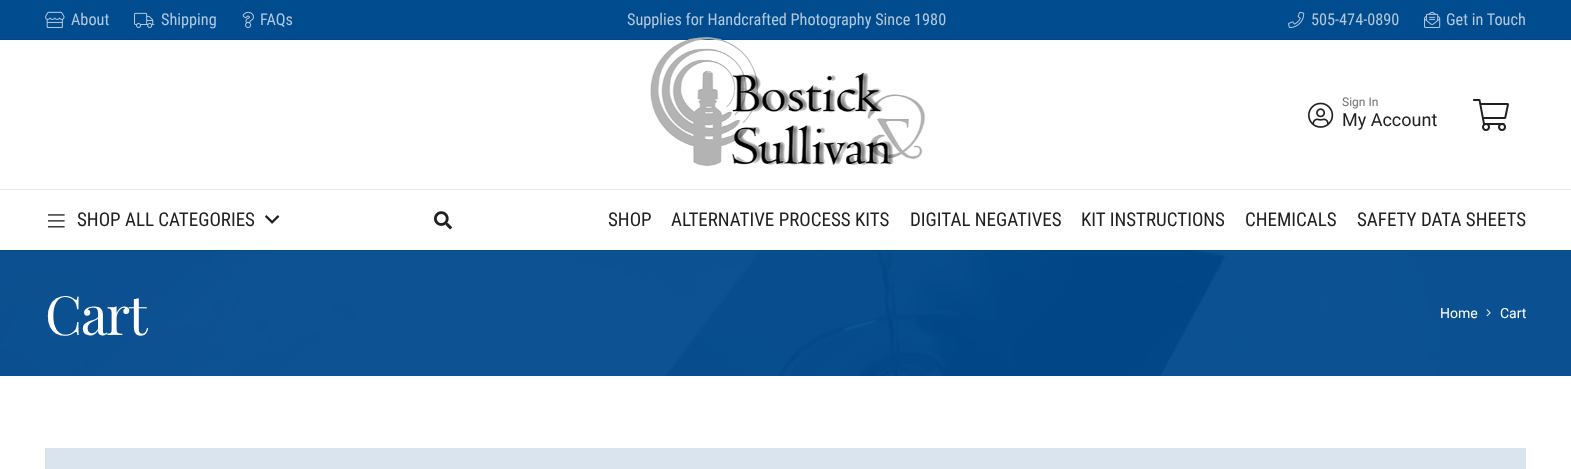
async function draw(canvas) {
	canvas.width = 1571;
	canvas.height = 469;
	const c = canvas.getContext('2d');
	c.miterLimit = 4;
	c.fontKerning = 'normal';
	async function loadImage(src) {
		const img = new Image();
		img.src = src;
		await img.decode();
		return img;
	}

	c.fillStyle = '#fff';
	c.fillRect(0, 0, 1571, 469);
	c.fillStyle = '#014b8f';
	c.fillRect(0, 0, 1571, 39);
	c.drawImage(await loadImage('img1.png'), 45, 11, 20, 17);
	c.font = '16.25px Roboto Condensed';
	c.fillStyle = '#b3c9dd';
	c.fillText('About', 71, 25);
	c.drawImage(await loadImage('img2.png'), 134, 12, 21, 16);
	c.fillText('Shipping', 161, 25);
	c.drawImage(await loadImage('img3.png'), 242, 11, 12, 17);
	c.fillText('FAQs', 260, 25);
	c.fillText('Supplies for Handcrafted Photography Since 1980', 627, 25);
	c.drawImage(await loadImage('img4.png'), 1288, 11, 17, 17);
	c.fillText('505-474-0890', 1311, 25);
	c.drawImage(await loadImage('img5.png'), 1424, 11, 17, 17);
	c.fillText('Get in Touch', 1446, 25);
	c.fillStyle = '#014584';
	c.fillRect(0, 39, 1571, 1);
	c.drawImage(await loadImage('img6.png'), 650, 37, 275, 129);
	c.drawImage(await loadImage('img7.png'), 1308, 102, 26, 26);
	c.font = '12px Roboto';
	c.fillStyle = '#707070';
	c.fillText('Sign In', 1342, 106);
	c.font = '18px Roboto';
	c.fillStyle = '#202020';
	c.fillText('My Account', 1342, 126);
	c.drawImage(await loadImage('img8.png'), 1473, 99, 36, 32);
	c.fillStyle = '#ebebeb';
	c.fillRect(0, 189, 1571, 1);
	c.drawImage(await loadImage('img12.png'), 0, 250, 1571, 126);
	c.fillStyle = '#00000014';
	c.fillRect(0, 250, 1571, 1);
	c.drawImage(await loadImage('img9.png'), 48, 214, 17, 14);
	c.font = '19px Roboto Condensed';
	c.fillStyle = '#202020';
	c.fillText('SHOP ALL CATEGORIES', 77, 226);
	c.drawImage(await loadImage('img10.png'), 265, 215, 15, 9);
	c.drawImage(await loadImage('img11.png'), 434, 211, 18, 19);
	for (const [text, x, y] of [
		['SHOP', 608, 226],
		['ALTERNATIVE PROCESS KITS', 671, 226],
		['DIGITAL NEGATIVES', 910, 226],
		['KIT INSTRUCTIONS', 1081, 226],
		['CHEMICALS', 1245, 226],
		['SAFETY DATA SHEETS', 1357, 226],
	]) {
		c.fillText(text, x, y);
	}
	c.letterSpacing = '-1.5px';
	c.font = '54px Playfair Display';
	c.fillStyle = '#fff';
	c.fillText('Cart', 45, 335);
	c.letterSpacing = '0px';
	c.font = '14px Roboto';
	c.fillText('Home', 1440, 318);
	c.drawImage(await loadImage('img13.png'), 1486, 309, 5, 8);
	c.fillText('Cart', 1500, 318);
	c.fillStyle = '#d9e4ee';
	c.fillRect(45, 448, 1481, 21);
}

draw(document.querySelector('canvas'));
